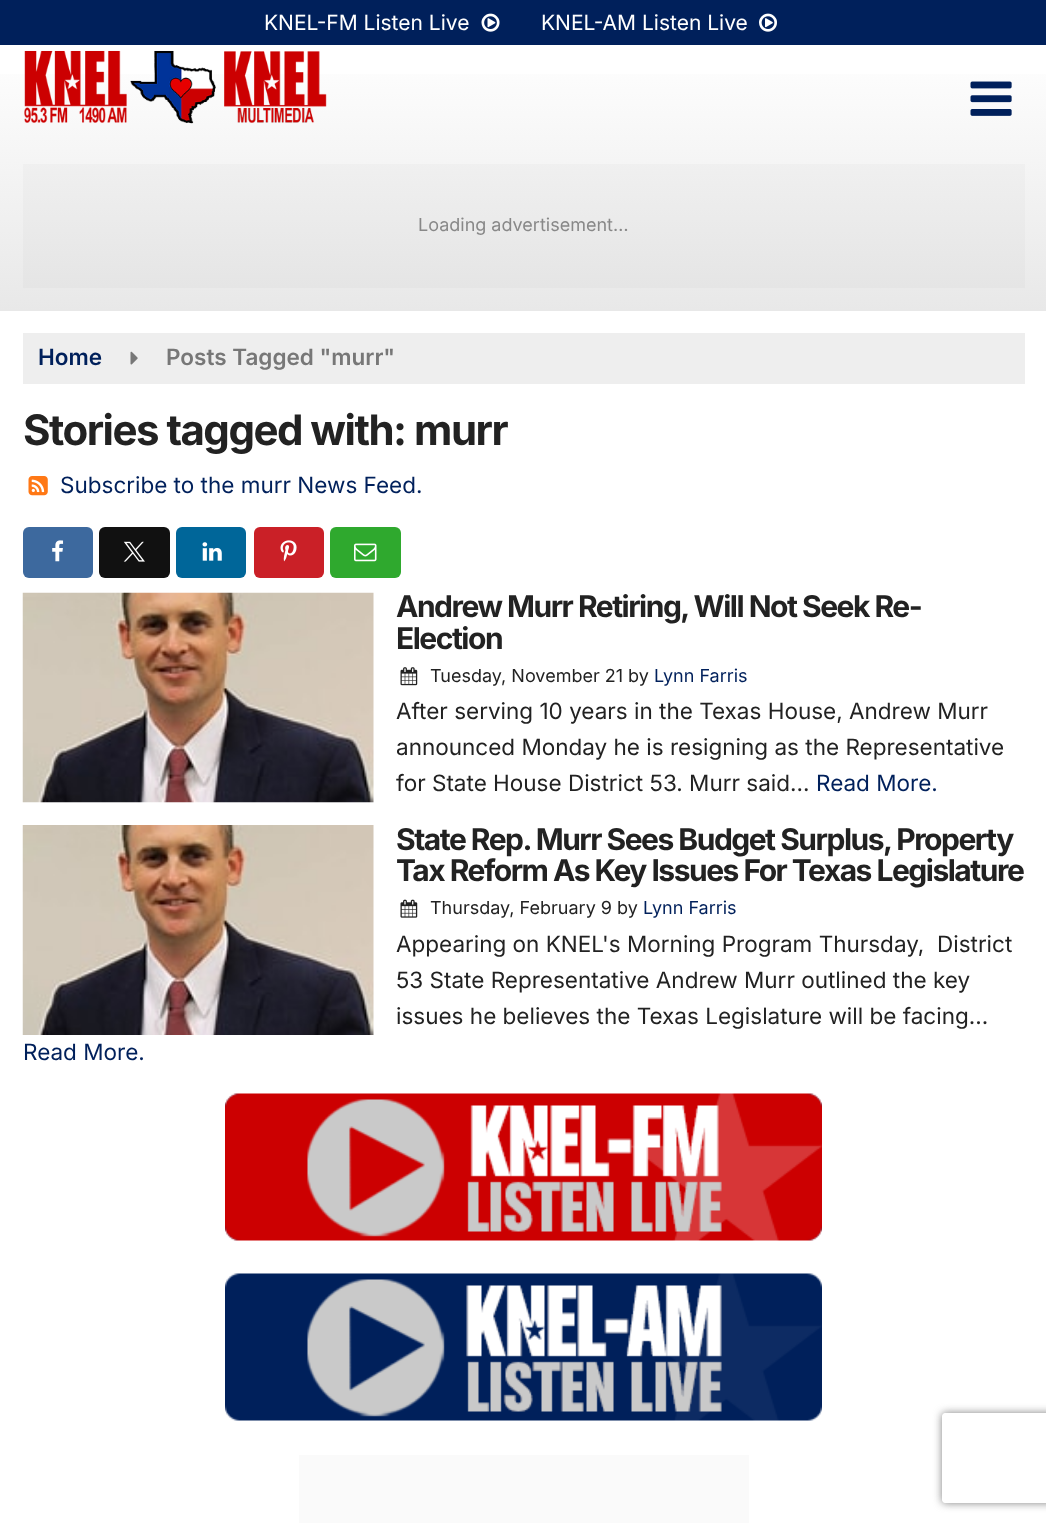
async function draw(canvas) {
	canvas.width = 1046;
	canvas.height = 1523;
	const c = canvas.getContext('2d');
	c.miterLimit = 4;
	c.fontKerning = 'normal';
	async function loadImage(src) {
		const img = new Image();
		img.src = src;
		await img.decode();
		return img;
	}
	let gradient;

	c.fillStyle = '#fff';
	c.fillRect(0, 0, 1046, 1523);
	c.fillStyle = '#00205b';
	c.fillRect(0, 0, 1046, 45);
	c.font = '21px Inter';
	c.fillStyle = '#fff';
	c.fillText('KNEL-FM Listen Live', 264, 30);
	c.drawImage(await loadImage('img1.png'), 481, 13, 19, 19);
	c.fillText('KNEL-AM Listen Live', 541, 30);
	c.drawImage(await loadImage('img2.png'), 759, 13, 18, 19);
	gradient = c.createLinearGradient(524, 45, 524, 311);
	gradient.addColorStop(0, '#fff');
	gradient.addColorStop(1, '#e8e8e8');
	c.fillStyle = gradient;
	c.fillRect(0, 74, 1046, 237);
	gradient = c.createLinearGradient(524, 45, 524, 311);
	gradient.addColorStop(0, '#fafafa');
	gradient.addColorStop(1, '#e3e3e3');
	c.fillStyle = gradient;
	c.fillRect(23, 164, 1002, 124);
	c.drawImage(await loadImage('img3.png'), 24, 50, 303, 74);
	c.drawImage(await loadImage('img4.png'), 970, 81, 42, 35);
	c.font = '18px Inter';
	c.fillStyle = '#888';
	c.fillText('Loading advertisement…', 418, 231);
	c.fillStyle = '#eee';
	c.fillRect(23, 333, 1002, 51);
	c.font = '600 22.5px Inter';
	c.fillStyle = '#00205b';
	c.fillText('Home', 38, 365);
	c.drawImage(await loadImage('img5.png'), 130, 351, 8, 14);
	c.fillStyle = '#777';
	c.fillText('Posts Tagged "murr"', 166, 365);
	c.letterSpacing = '-1.5px';
	c.font = 'bold 42px Inter';
	c.fillStyle = '#222';
	c.fillText('Stories tagged with: murr', 23, 445);
	c.drawImage(await loadImage('img6.png'), 28, 476, 20, 20);
	c.letterSpacing = '0px';
	c.font = '22.5px Inter';
	c.fillStyle = '#00205b';
	c.fillText('Subscribe to the murr News Feed.', 60, 493);
	c.fillStyle = '#3d699e';
	c.beginPath();
	c.roundRect(23, 527, 70, 51, 6);
	c.fill();
	c.drawImage(await loadImage('img7.png'), 52, 540, 12, 22);
	c.fillStyle = '#111';
	c.beginPath();
	c.roundRect(99, 527, 71, 51, 6);
	c.fill();
	c.drawImage(await loadImage('img8.png'), 123, 541, 22, 21);
	c.fillStyle = '#069';
	c.beginPath();
	c.roundRect(176, 527, 70, 51, 6);
	c.fill();
	c.drawImage(await loadImage('img9.png'), 202, 542, 20, 19);
	c.fillStyle = '#ca2027';
	c.beginPath();
	c.roundRect(254, 527, 70, 51, 6);
	c.fill();
	c.drawImage(await loadImage('img10.png'), 280, 540, 17, 22);
	c.fillStyle = '#2fa92e';
	c.beginPath();
	c.roundRect(330, 527, 71, 51, 6);
	c.fill();
	c.drawImage(await loadImage('img11.png'), 354, 543, 23, 19);
	c.drawImage(await loadImage('img12.png'), 22, 592, 352, 211);
	c.letterSpacing = '-1.5px';
	c.font = 'bold 30px Inter';
	c.fillStyle = '#222';
	c.fillText('Andrew Murr Retiring, Will Not Seek Re-', 396, 617);
	c.fillText('Election', 396, 649);
	c.drawImage(await loadImage('img13.png'), 400, 667, 18, 19);
	c.letterSpacing = '0px';
	c.font = '18px Inter';
	c.fillText('Tuesday, November 21 by', 430, 682);
	c.fillStyle = '#00205b';
	c.fillText('Lynn Farris', 654, 682);
	c.font = '22.5px Inter';
	c.fillStyle = '#222';
	for (const [text, x, y] of [
		['After serving 10 years in the Texas House, Andrew Murr', 396, 719],
		['announced Monday he is resigning as the Representative', 396, 755],
		['for State House District 53. Murr said...', 396, 791],
	]) {
		c.fillText(text, x, y);
	}
	c.fillStyle = '#00205b';
	c.fillText('Read More.', 816, 791);
	c.drawImage(await loadImage('img14.png'), 22, 825, 352, 210);
	c.letterSpacing = '-1.5px';
	c.font = 'bold 30px Inter';
	c.fillStyle = '#222';
	c.fillText('State Rep. Murr Sees Budget Surplus, Property', 396, 850);
	c.fillText('Tax Reform As Key Issues For Texas Legislature', 396, 881);
	c.drawImage(await loadImage('img15.png'), 400, 899, 18, 19);
	c.letterSpacing = '0px';
	c.font = '18px Inter';
	c.fillText('Thursday, February 9 by', 430, 914);
	c.fillStyle = '#00205b';
	c.fillText('Lynn Farris', 643, 914);
	c.font = '22.5px Inter';
	c.fillStyle = '#222';
	for (const [text, x, y] of [
		['Appearing on KNEL\'s Morning Program Thursday,  District', 396, 952],
		['53 State Representative Andrew Murr outlined the key', 396, 988],
		['issues he believes the Texas Legislature will be facing...', 396, 1024],
	]) {
		c.fillText(text, x, y);
	}
	c.fillStyle = '#00205b';
	c.fillText('Read More.', 23, 1060);
	c.drawImage(await loadImage('img16.png'), 225, 1093, 597, 148);
	c.drawImage(await loadImage('img17.png'), 225, 1273, 597, 148);
	c.fillStyle = '#fafafa';
	c.fillRect(299, 1455, 450, 68);
	c.save();
	c.beginPath();
	c.moveTo(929, 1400);
	c.lineTo(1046, 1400);
	c.lineTo(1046, 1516);
	c.lineTo(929, 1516);
	c.closePath();
	c.moveTo(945, 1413);
	c.lineTo(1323, 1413);
	c.bezierCurveTo(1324.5, 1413, 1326, 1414.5, 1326, 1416);
	c.lineTo(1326, 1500);
	c.bezierCurveTo(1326, 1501.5, 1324.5, 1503, 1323, 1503);
	c.lineTo(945, 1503);
	c.bezierCurveTo(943.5, 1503, 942, 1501.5, 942, 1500);
	c.lineTo(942, 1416);
	c.bezierCurveTo(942, 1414.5, 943.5, 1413, 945, 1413);
	c.closePath();
	c.clip('evenodd');
	c.fillStyle = '#808080';
	c.filter = 'blur(4px)';
	c.beginPath();
	c.roundRect(942, 1413, 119, 90, 3);
	c.fill();
	c.filter = 'none';
	c.restore();
}

draw(document.querySelector('canvas'));
